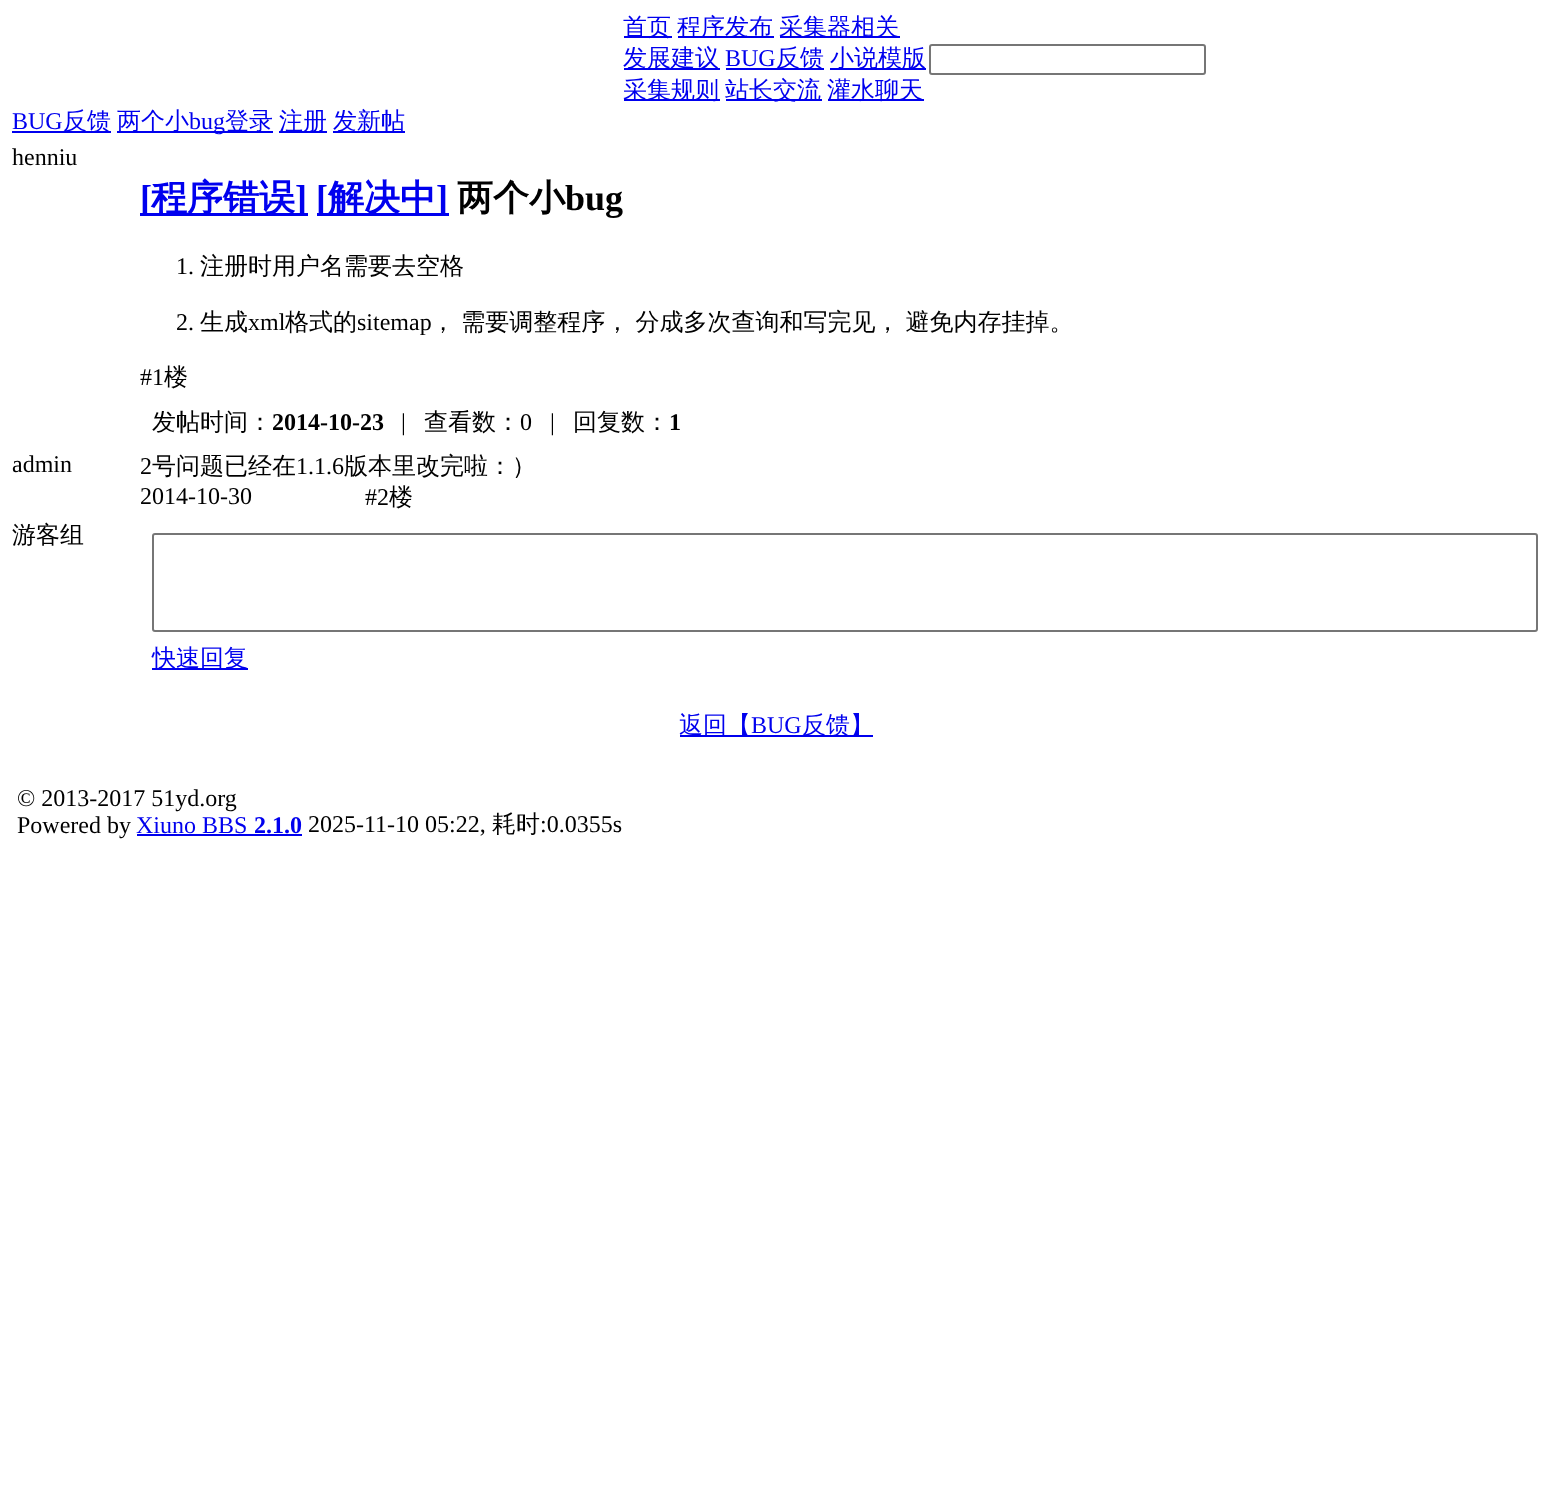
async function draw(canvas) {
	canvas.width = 1552;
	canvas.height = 1497;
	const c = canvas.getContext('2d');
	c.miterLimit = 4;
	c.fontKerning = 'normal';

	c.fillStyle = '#fff';
	c.fillRect(0, 0, 1552, 1497);
	c.fillStyle = '#00e';
	c.fillRect(624, 36, 48, 2);
	c.font = '500 24px WenQuanYi Zen Hei';
	c.fillText('首页', 623, 35);
	c.fillRect(678, 36, 96, 2);
	c.fillText('程序发布', 677, 35);
	c.fillRect(780, 36, 120, 2);
	c.fillText('采集器相关', 779, 35);
	c.fillRect(624, 68, 96, 2);
	c.fillText('发展建议', 623, 66);
	c.font = '24px Liberation Serif';
	c.fillText('BUG', 725, 66);
	c.fillRect(726, 68, 98, 2);
	c.font = '500 24px WenQuanYi Zen Hei';
	c.fillText('反馈', 776, 66);
	c.fillRect(830, 68, 96, 2);
	c.fillText('小说模版', 830, 66);
	c.fillRect(624, 99, 96, 2);
	c.fillText('采集规则', 623, 98);
	c.fillRect(726, 99, 96, 2);
	c.fillText('站长交流', 725, 98);
	c.fillRect(828, 99, 96, 2);
	c.fillText('灌水聊天', 827, 98);
	c.beginPath();
	c.roundRect(930, 45, 275, 29, 2);
	c.strokeStyle = '#767676';
	c.lineWidth = 2;
	c.stroke();
	c.font = '24px Liberation Serif';
	c.fillText('BUG', 12, 129);
	c.fillRect(12, 131, 99, 2);
	c.font = '500 24px WenQuanYi Zen Hei';
	c.fillText('反馈', 63, 129);
	c.fillRect(117, 131, 156, 2);
	c.fillText('两个小', 117, 129);
	c.font = '24px Liberation Serif';
	c.fillText('bug', 189, 129);
	c.font = '500 24px WenQuanYi Zen Hei';
	c.fillText('登录', 225, 129);
	c.fillRect(279, 131, 48, 2);
	c.fillText('注册', 279, 129);
	c.fillRect(333, 131, 72, 2);
	c.fillText('发新帖', 333, 129);
	c.font = '24px Liberation Serif';
	c.fillStyle = '#000';
	c.fillText('henniu', 12, 165);
	c.fillStyle = '#00e';
	c.fillRect(140, 213, 168, 3);
	c.font = 'bold 36px Liberation Serif';
	c.fillText('[', 140, 210);
	c.font = 'bold 36px WenQuanYi Zen Hei';
	c.fillText('程序错误', 151, 210);
	c.font = 'bold 36px Liberation Serif';
	c.fillText(']', 295, 210);
	c.fillRect(317, 213, 132, 3);
	c.fillText('[', 316, 210);
	c.font = 'bold 36px WenQuanYi Zen Hei';
	c.fillText('解决中', 328, 210);
	c.font = 'bold 36px Liberation Serif';
	c.fillText(']', 436, 210);
	c.font = 'bold 36px WenQuanYi Zen Hei';
	c.fillStyle = '#000';
	c.fillText('两个小', 457, 210);
	c.font = 'bold 36px Liberation Serif';
	c.fillText('bug', 565, 210);
	c.font = '24px Liberation Serif';
	c.fillText('1.', 176, 274);
	c.font = '500 24px WenQuanYi Zen Hei';
	c.fillText('注册时用户名需要去空格', 200, 274);
	c.font = '24px Liberation Serif';
	c.fillText('2.', 176, 330);
	c.font = '500 24px WenQuanYi Zen Hei';
	c.fillText('生成', 200, 330);
	c.font = '24px Liberation Serif';
	c.fillText('xml', 248, 330);
	c.font = '500 24px WenQuanYi Zen Hei';
	c.fillText('格式的', 285, 330);
	c.font = '24px Liberation Serif';
	c.fillText('sitemap', 357, 330);
	c.wordSpacing = '-1px';
	c.font = '500 24px WenQuanYi Zen Hei';
	c.fillText('， 需要调整程序， 分成多次查询和写完见， 避免内存挂掉。', 431, 330);
	c.wordSpacing = '0px';
	c.font = '24px Liberation Serif';
	c.fillText('#1', 140, 385);
	c.font = '500 24px WenQuanYi Zen Hei';
	c.fillText('楼', 164, 385);
	c.fillText('发帖时间：', 152, 430);
	c.font = 'bold 24px Liberation Serif';
	c.fillText('2014-10-23', 272, 430);
	c.font = '24px Liberation Serif';
	c.fillText('|', 401, 430);
	c.font = '500 24px WenQuanYi Zen Hei';
	c.fillText('查看数：', 424, 430);
	c.font = '24px Liberation Serif';
	c.fillText('0', 520, 430);
	c.fillText('|', 550, 430);
	c.font = '500 24px WenQuanYi Zen Hei';
	c.fillText('回复数：', 573, 430);
	c.font = 'bold 24px Liberation Serif';
	c.fillText('1', 669, 430);
	c.font = '24px Liberation Serif';
	c.fillText('admin', 12, 472);
	c.fillText('2', 140, 474);
	c.font = '500 24px WenQuanYi Zen Hei';
	c.fillText('号问题已经在', 152, 474);
	c.font = '24px Liberation Serif';
	c.fillText('1.1.6', 296, 474);
	c.font = '500 24px WenQuanYi Zen Hei';
	c.fillText('版本里改完啦：）', 344, 474);
	c.font = '24px Liberation Serif';
	c.fillText('2014-10-30', 140, 504);
	c.fillText('#2', 365, 505);
	c.font = '500 24px WenQuanYi Zen Hei';
	c.fillText('楼', 389, 505);
	c.fillText('游客组', 12, 543);
	c.beginPath();
	c.roundRect(153, 534, 1384, 97, 2);
	c.stroke();
	c.fillStyle = '#00e';
	c.fillRect(152, 668, 96, 2);
	c.fillText('快速回复', 152, 666);
	c.fillRect(680, 735, 193, 2);
	c.fillText('返回【', 679, 733);
	c.font = '24px Liberation Serif';
	c.fillText('BUG', 751, 733);
	c.font = '500 24px WenQuanYi Zen Hei';
	c.fillText('反馈】', 802, 733);
	c.font = '24px Liberation Serif';
	c.fillStyle = '#000';
	c.fillText('© 2013-2017 51yd.org', 17, 806);
	c.fillText('Powered by', 17, 833);
	c.fillStyle = '#00e';
	c.fillText('Xiuno BBS', 136, 833);
	c.fillRect(137, 834, 165, 2);
	c.font = 'bold 24px Liberation Serif';
	c.fillText('2.1.0', 254, 833);
	c.font = '24px Liberation Serif';
	c.fillStyle = '#000';
	c.fillText('2025-11-10 05:22,', 308, 832);
	c.font = '500 24px WenQuanYi Zen Hei';
	c.fillText('耗时', 492, 832);
	c.font = '24px Liberation Serif';
	c.fillText(':0.0355s', 540, 832);
}

draw(document.querySelector('canvas'));
